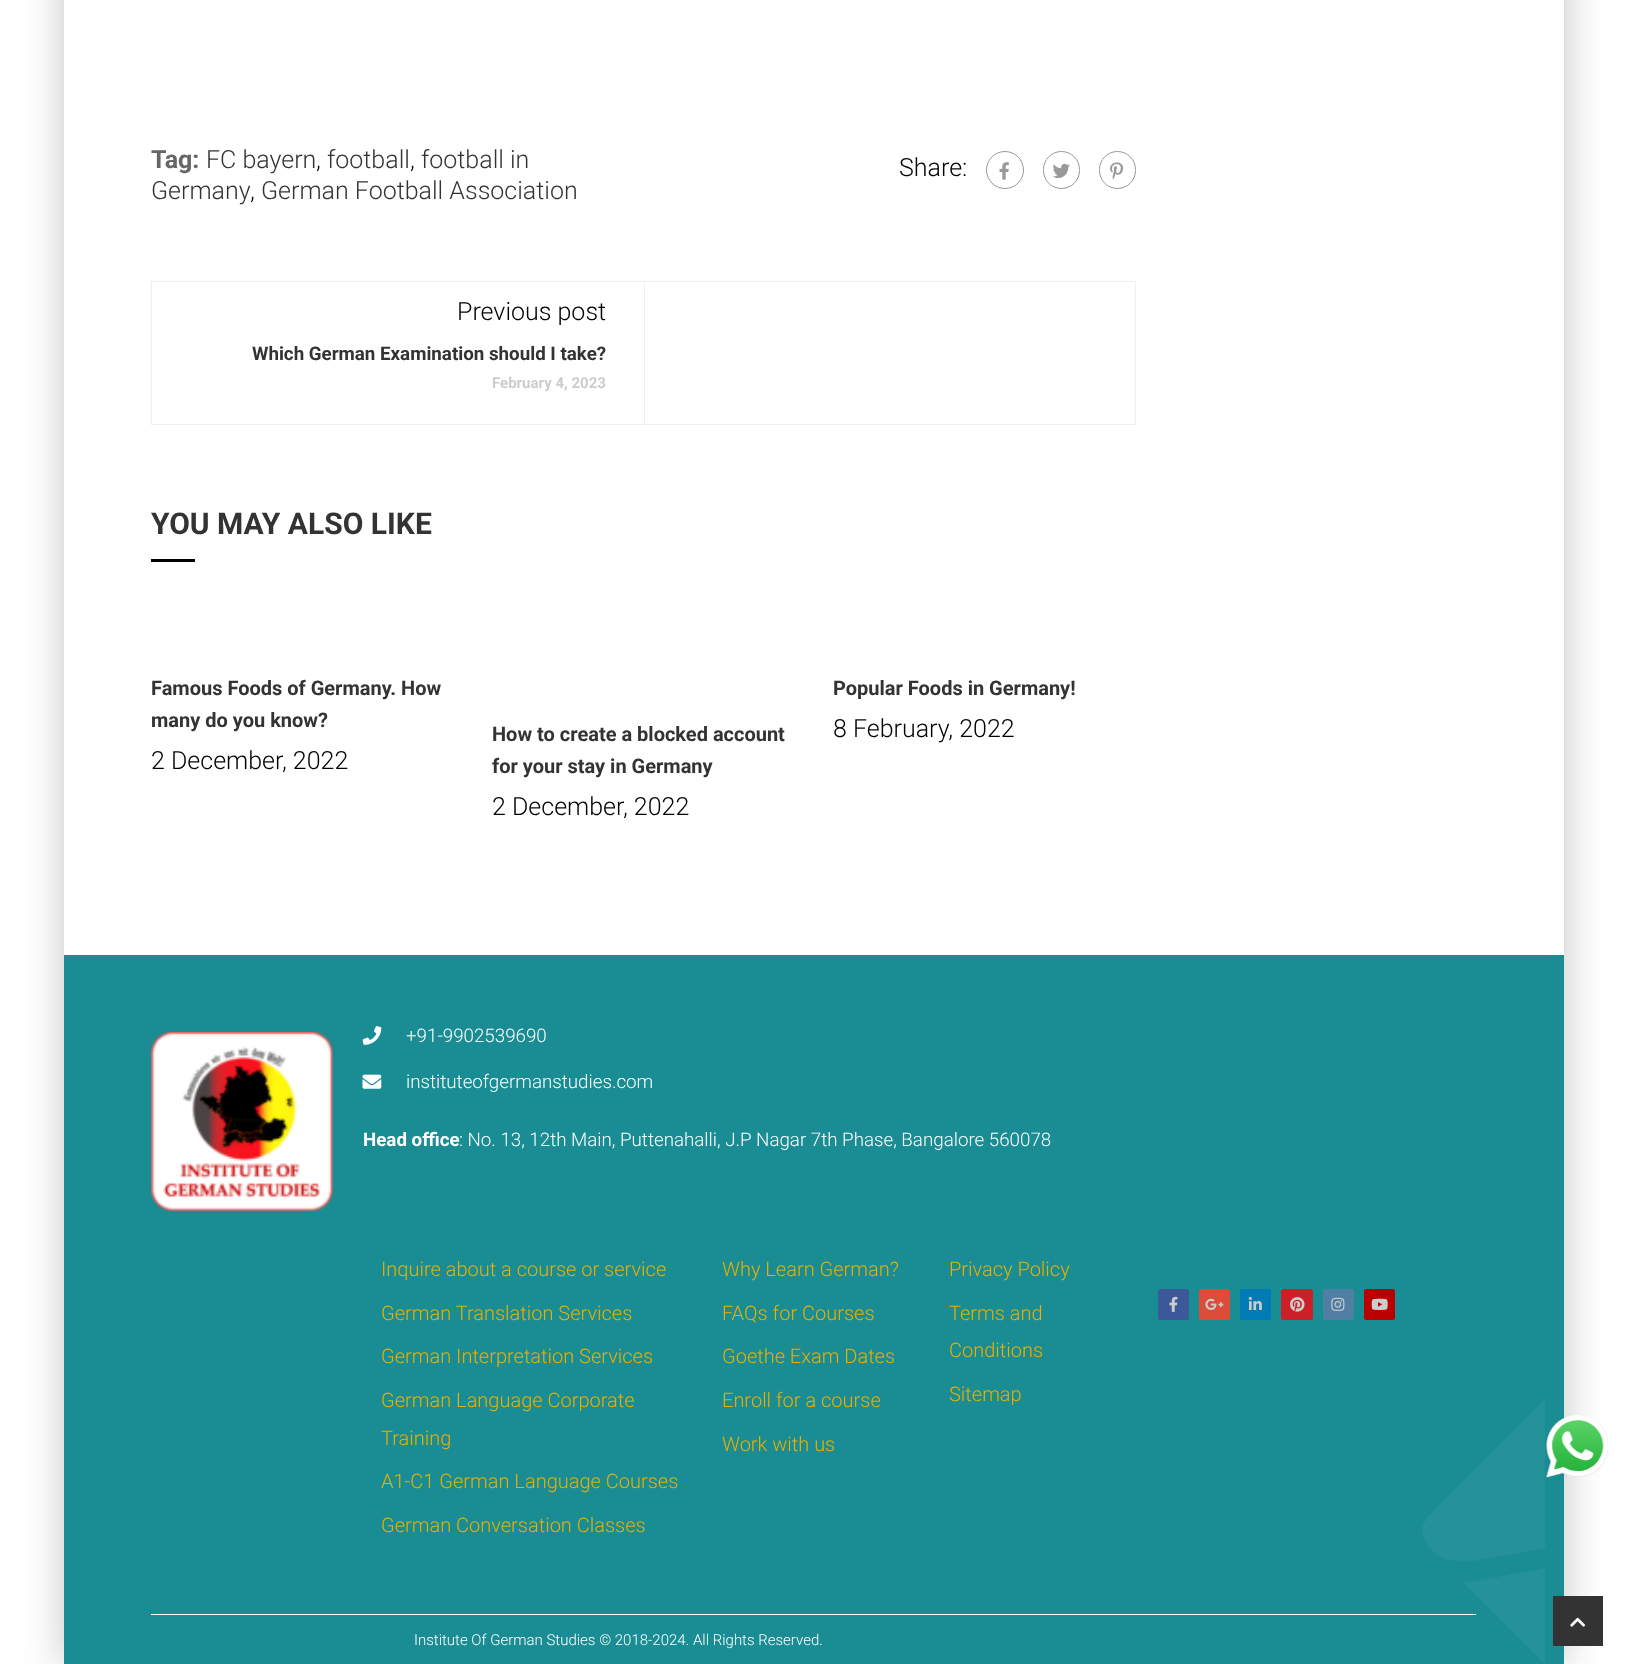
async function draw(canvas) {
	canvas.width = 1627;
	canvas.height = 1664;
	const c = canvas.getContext('2d');
	c.miterLimit = 4;
	c.fontKerning = 'normal';
	async function loadImage(src) {
		const img = new Image();
		img.src = src;
		await img.decode();
		return img;
	}

	c.fillStyle = '#fff';
	c.fillRect(0, 0, 1627, 1664);
	c.fillStyle = '#0000003b';
	c.filter = 'blur(20px)';
	c.beginPath();
	c.rect(64, -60, 1500, 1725);
	c.fill();
	c.filter = 'none';
	c.fillStyle = '#fff';
	c.fillRect(64, 0, 1500, 955);
	c.font = 'bold 25px Roboto';
	c.fillStyle = '#666';
	c.fillText('Tag:', 151, 168);
	c.font = '300 25px Roboto';
	c.fillStyle = '#333';
	c.fillText('FC bayern', 206, 168);
	c.fillStyle = '#000';
	c.fillText(',', 316, 168);
	c.fillStyle = '#333';
	c.fillText('football', 327, 168);
	c.fillStyle = '#000';
	c.fillText(',', 410, 168);
	c.fillStyle = '#333';
	c.fillText('football in', 421, 168);
	c.fillText('Germany', 151, 199);
	c.fillStyle = '#000';
	c.fillText(',', 250, 199);
	c.fillStyle = '#333';
	c.fillText('German Football Association', 261, 199);
	c.fillStyle = '#000';
	c.fillText('Share:', 899, 176);
	c.beginPath();
	c.arc(1005, 170, 18.5, 0, 2 * Math.PI);
	c.strokeStyle = '#999';
	c.stroke();
	c.drawImage(await loadImage('img1.png'), 999, 162, 10, 18);
	c.beginPath();
	c.roundRect(1043.5, 151.5, 36, 37, 18);
	c.stroke();
	c.drawImage(await loadImage('img2.png'), 1052, 163, 18, 15);
	c.beginPath();
	c.roundRect(1099.5, 151.5, 36, 37, 18);
	c.stroke();
	c.drawImage(await loadImage('img3.png'), 1110, 162, 14, 18);
	c.strokeStyle = '#eee';
	c.strokeRect(151.5, 281.5, 984, 143);
	c.fillText('Previous post', 457, 320);
	c.font = 'bold 18.75px Roboto';
	c.fillStyle = '#333';
	c.fillText('Which German Examination should I take?', 252, 360);
	c.font = 'bold 15px Roboto';
	c.fillStyle = '#ccc';
	c.fillText('February 4, 2023', 492, 388);
	c.fillStyle = '#eee';
	c.fillRect(644, 283, 1, 141);
	c.font = 'bold 30px Roboto';
	c.fillStyle = '#333';
	c.fillText('YOU MAY ALSO LIKE', 151, 534);
	c.fillStyle = '#000';
	c.fillRect(151, 559, 44, 3);
	c.font = 'bold 20px Roboto';
	c.fillStyle = '#333';
	c.fillText('Famous Foods of Germany. How', 151, 695);
	c.fillText('many do you know?', 151, 727);
	c.font = '300 25px Roboto';
	c.fillStyle = '#000';
	c.fillText('2 December, 2022', 151, 769);
	c.font = 'bold 20px Roboto';
	c.fillStyle = '#333';
	c.fillText('Popular Foods in Germany!', 833, 695);
	c.font = '300 25px Roboto';
	c.fillStyle = '#000';
	c.fillText('8 February, 2022', 833, 737);
	c.font = 'bold 20px Roboto';
	c.fillStyle = '#333';
	c.fillText('How to create a blocked account', 492, 741);
	c.fillText('for your stay in Germany', 492, 773);
	c.font = '300 25px Roboto';
	c.fillStyle = '#000';
	c.fillText('2 December, 2022', 492, 815);
	c.fillStyle = '#198d93';
	c.fillRect(64, 955, 1500, 709);
	c.drawImage(await loadImage('img4.png'), 151, 1032, 182, 179);
	c.drawImage(await loadImage('img5.png'), 362, 1026, 20, 19);
	c.font = '300 18.75px Roboto';
	c.fillStyle = '#fff';
	c.fillText('+91-9902539690', 406, 1042);
	c.drawImage(await loadImage('img6.png'), 362, 1074, 20, 15);
	c.fillText('instituteofgermanstudies.com', 406, 1088);
	c.font = 'bold 18.75px Roboto';
	c.fillText('Head office', 363, 1146);
	c.font = '300 18.75px Roboto';
	c.fillText(': No. 13, 12th Main, Puttenahalli, J.P Nagar 7th Phase, Bangalore 560078', 459, 1146);
	c.font = '300 20px Roboto';
	c.fillStyle = '#eaaf00';
	for (const [text, x, y] of [
		['Inquire about a course or service', 381, 1276],
		['German Translation Services', 381, 1320],
		['German Interpretation Services', 381, 1363],
		['German Language Corporate', 381, 1407],
		['Training', 381, 1445],
		['A1-C1 German Language Courses', 381, 1488],
		['German Conversation Classes', 381, 1532],
		['Why Learn German?', 722, 1276],
		['FAQs for Courses', 722, 1320],
		['Goethe Exam Dates', 722, 1363],
		['Enroll for a course', 722, 1407],
		['Work with us', 722, 1451],
		['Privacy Policy', 949, 1276],
		['Terms and', 949, 1320],
		['Conditions', 949, 1357],
		['Sitemap', 949, 1401],
	]) {
		c.fillText(text, x, y);
	}
	c.fillStyle = '#3b5998';
	c.beginPath();
	c.roundRect(1158, 1289, 31, 31, 2.5);
	c.fill();
	c.drawImage(await loadImage('img7.png'), 1169, 1296, 9, 16);
	c.fillStyle = '#dd4b39';
	c.beginPath();
	c.roundRect(1199, 1289, 31, 31, 2.5);
	c.fill();
	c.drawImage(await loadImage('img8.png'), 1205, 1298, 19, 12);
	c.fillStyle = '#007bb5';
	c.beginPath();
	c.roundRect(1240, 1289, 31, 31, 2.5);
	c.fill();
	c.drawImage(await loadImage('img9.png'), 1248, 1296, 14, 14);
	c.fillStyle = '#cb2027';
	c.beginPath();
	c.roundRect(1281, 1289, 32, 31, 2.5);
	c.fill();
	c.drawImage(await loadImage('img10.png'), 1290, 1297, 15, 15);
	c.fillStyle = '#517fa4';
	c.beginPath();
	c.roundRect(1323, 1289, 31, 31, 2.5);
	c.fill();
	c.drawImage(await loadImage('img11.png'), 1331, 1297, 14, 14);
	c.fillStyle = '#b00';
	c.beginPath();
	c.roundRect(1364, 1289, 31, 31, 2.5);
	c.fill();
	c.drawImage(await loadImage('img12.png'), 1371, 1298, 17, 12);
	c.fillStyle = '#fff';
	c.fillRect(151, 1614, 1325, 1);
	c.drawImage(await loadImage('img13.png'), 1422, 1400, 123, 264);
	c.font = '300 15px Roboto';
	c.fillText('Institute Of German Studies © 2018-2024. All Rights Reserved.', 414, 1645);
	c.fillStyle = '#333';
	c.fillRect(1553, 1596, 50, 50);
	c.drawImage(await loadImage('img14.png'), 1570, 1617, 16, 10);
	c.drawImage(await loadImage('img15.png'), 1546, 1415, 62, 63);
}

draw(document.querySelector('canvas'));
